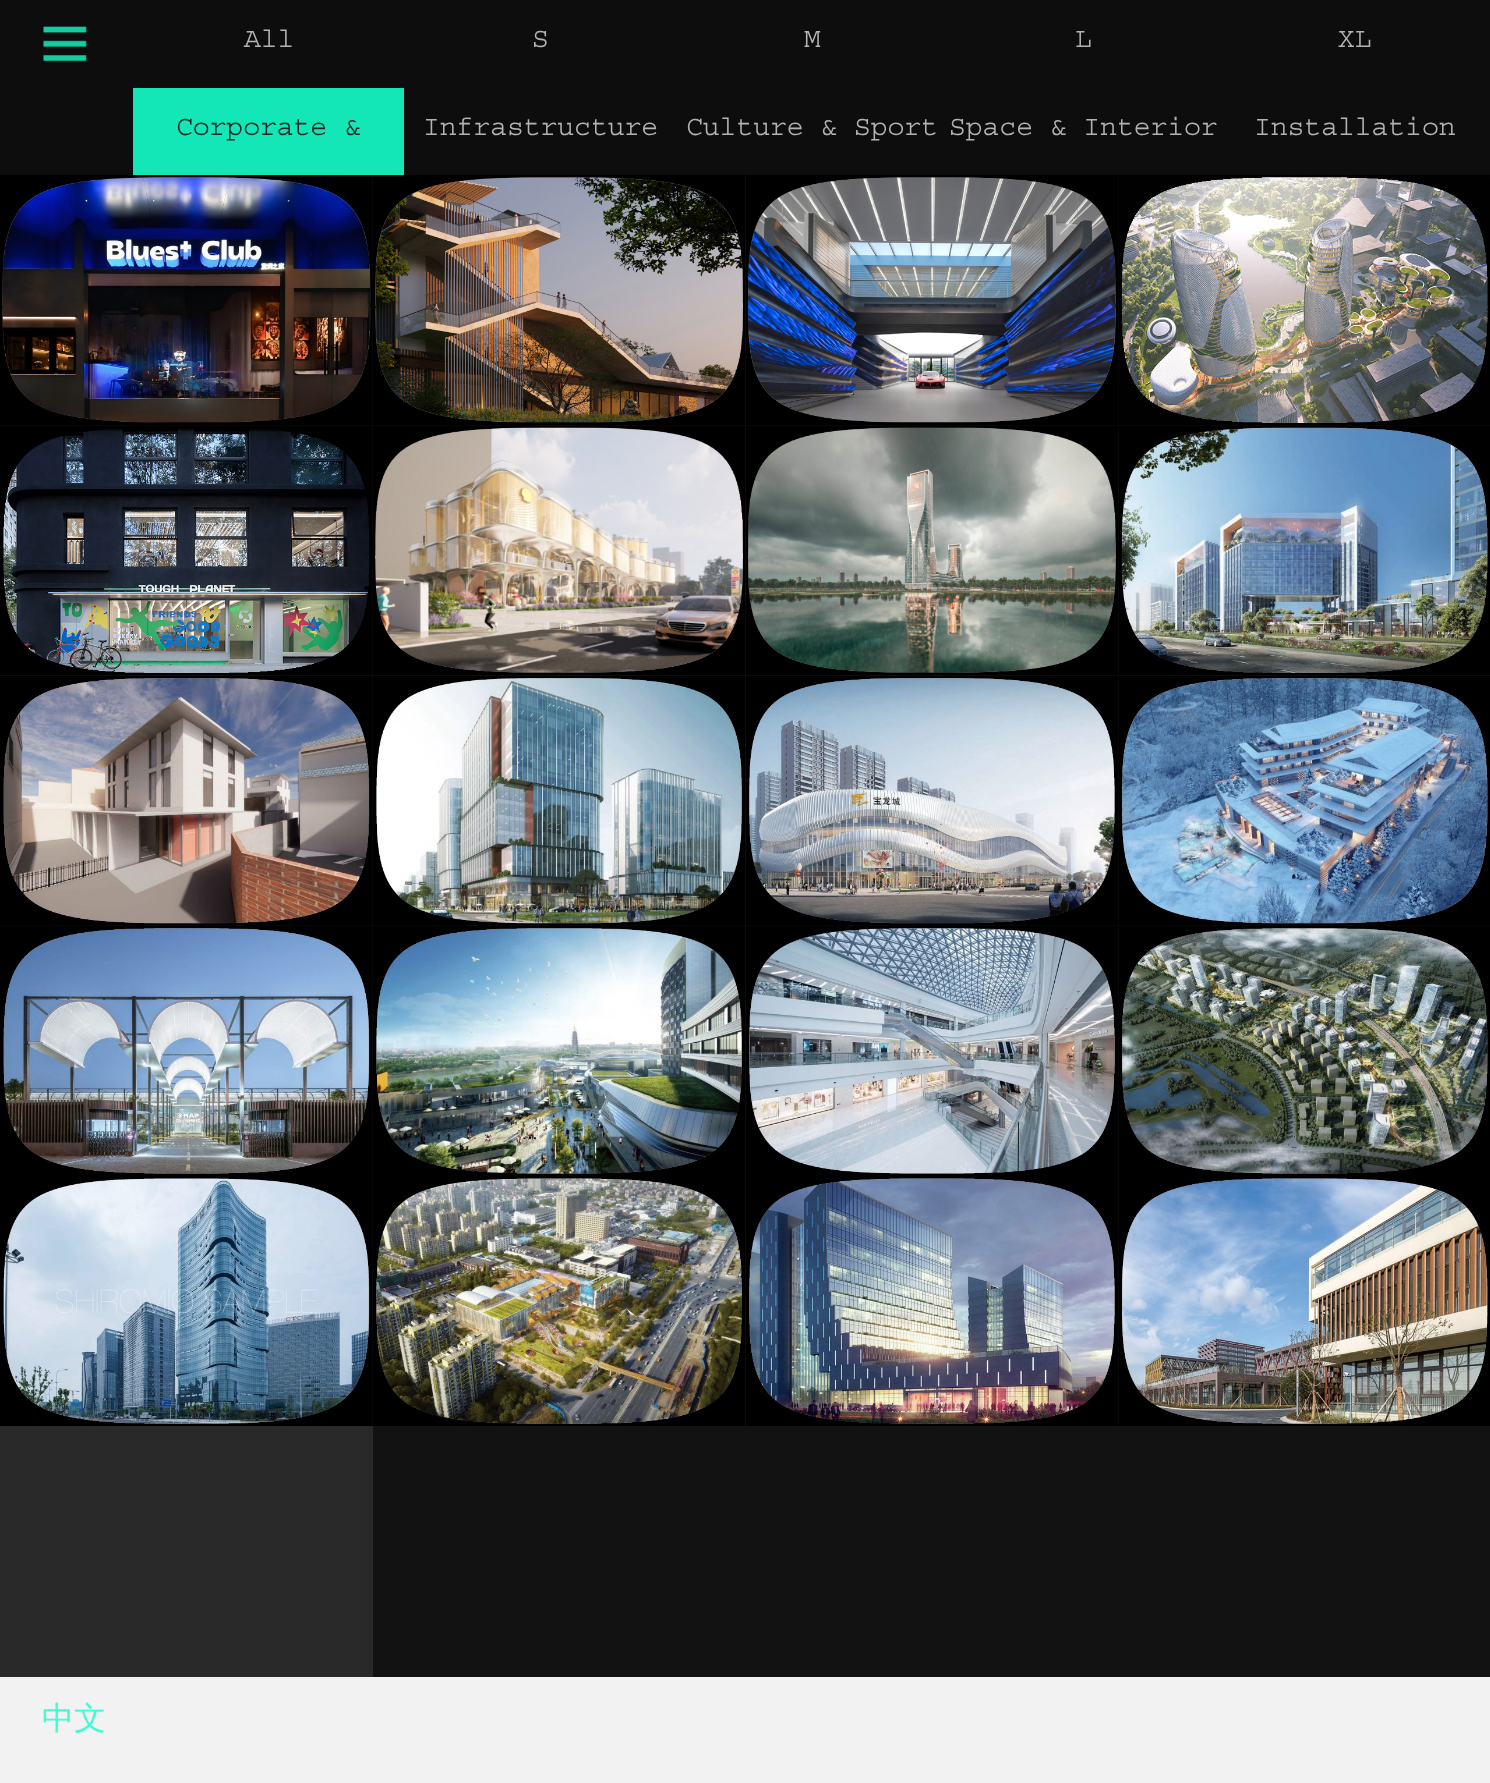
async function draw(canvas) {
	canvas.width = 1490;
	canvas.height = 1783;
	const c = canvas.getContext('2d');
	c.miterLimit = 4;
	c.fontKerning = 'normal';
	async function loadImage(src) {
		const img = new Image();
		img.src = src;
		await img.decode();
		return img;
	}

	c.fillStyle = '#f2f2f2';
	c.fillRect(0, 0, 1490, 1783);
	c.fillStyle = '#0d0d0d';
	c.fillRect(0, 0, 1490, 175);
	c.font = '500 28px Courier';
	c.fillStyle = '#b3b3b3';
	for (const [text, x, y] of [
		['All', 244, 47],
		['S', 532, 47],
		['M', 804, 47],
		['L', 1075, 47],
		['XL', 1338, 47],
	]) {
		c.fillText(text, x, y);
	}
	c.fillStyle = '#13e7b7';
	c.fillRect(133, 88, 271, 87);
	c.fillStyle = '#262626';
	c.fillText('Corporate &', 176, 135);
	c.fillStyle = '#b3b3b3';
	for (const [text, x, y] of [
		['Infrastructure', 423, 135],
		['Culture & Sport', 686, 135],
		['Space & Interior', 949, 135],
		['Installation', 1254, 135],
	]) {
		c.fillText(text, x, y);
	}
	c.fillStyle = '#121212';
	c.fillRect(0, 175, 1490, 1502);
	c.drawImage(await loadImage('img1.png'), 0, 175, 373, 250);
	c.drawImage(await loadImage('img2.png'), 373, 175, 373, 250);
	c.drawImage(await loadImage('img3.png'), 746, 175, 372, 250);
	c.drawImage(await loadImage('img4.png'), 1118, 175, 372, 250);
	c.drawImage(await loadImage('img5.png'), 0, 425, 373, 251);
	c.drawImage(await loadImage('img6.png'), 373, 425, 373, 251);
	c.drawImage(await loadImage('img7.png'), 746, 425, 372, 251);
	c.drawImage(await loadImage('img8.png'), 1118, 425, 372, 251);
	c.drawImage(await loadImage('img9.png'), 0, 676, 373, 250);
	c.drawImage(await loadImage('img10.png'), 373, 676, 373, 250);
	c.drawImage(await loadImage('img11.png'), 746, 676, 372, 250);
	c.drawImage(await loadImage('img12.png'), 1118, 676, 372, 250);
	c.drawImage(await loadImage('img13.png'), 0, 926, 373, 250);
	c.drawImage(await loadImage('img14.png'), 373, 926, 373, 250);
	c.drawImage(await loadImage('img15.png'), 746, 926, 372, 250);
	c.drawImage(await loadImage('img16.png'), 1118, 926, 372, 250);
	c.drawImage(await loadImage('img17.png'), 0, 1176, 373, 250);
	c.drawImage(await loadImage('img18.png'), 373, 1176, 373, 250);
	c.drawImage(await loadImage('img19.png'), 746, 1176, 372, 250);
	c.drawImage(await loadImage('img20.png'), 1118, 1176, 372, 250);
	c.fillStyle = '#292929';
	c.fillRect(0, 1426, 373, 251);
	c.drawImage(await loadImage('img21.png'), 43, 26, 44, 36);
	c.font = '500 32px WenQuanYi Zen Hei';
	c.fillStyle = '#40fcd1';
	c.fillText('中文', 42, 1729);
}

draw(document.querySelector('canvas'));
